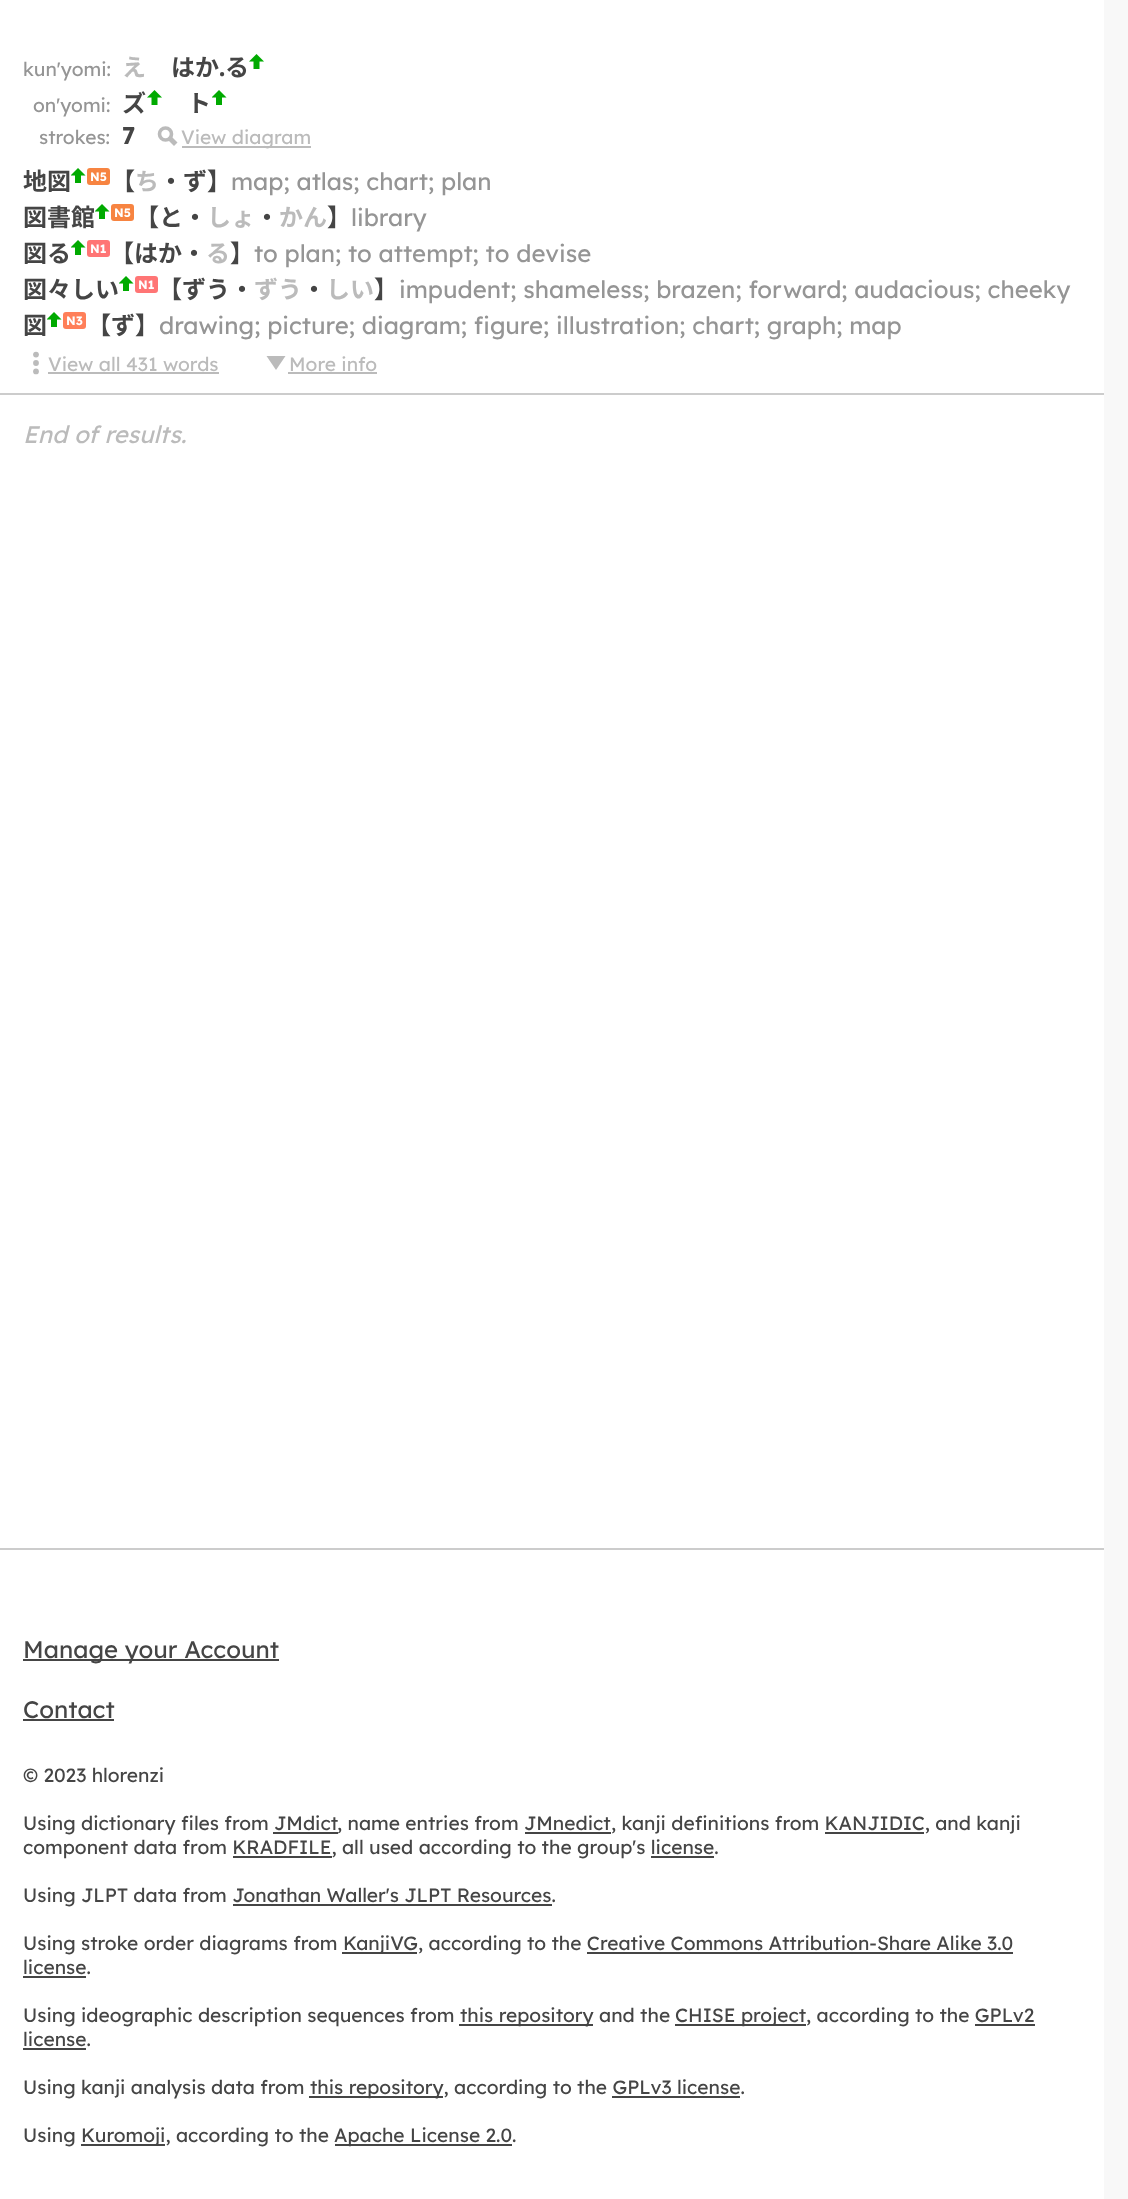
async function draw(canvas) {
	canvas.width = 1128;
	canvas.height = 2199;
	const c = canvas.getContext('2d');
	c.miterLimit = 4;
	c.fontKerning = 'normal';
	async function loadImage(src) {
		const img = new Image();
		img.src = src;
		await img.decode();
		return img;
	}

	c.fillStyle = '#f8f8f8';
	c.fillRect(0, 0, 1128, 2199);
	c.fillStyle = '#fff';
	c.fillRect(0, 0, 1104, 2199);
	c.font = '19.2px Lexend Deca';
	c.fillStyle = '#959595';
	c.fillText('kun\'yomi:', 23, 76);
	c.font = 'bold 24px Noto Sans JP';
	c.fillStyle = '#bbb';
	c.fillText('え', 122, 76);
	c.fillStyle = '#454545';
	c.fillText('はか', 171, 76);
	c.font = 'bold 24px Lexend Deca';
	c.fillText('.', 219, 76);
	c.font = 'bold 24px Noto Sans JP';
	c.fillText('る', 225, 76);
	c.drawImage(await loadImage('img1.png'), 249, 54, 15, 15);
	c.font = '19.2px Lexend Deca';
	c.fillStyle = '#959595';
	c.fillText('on\'yomi:', 33, 112);
	c.font = 'bold 24px Noto Sans JP';
	c.fillStyle = '#454545';
	c.fillText('ズ', 122, 112);
	c.drawImage(await loadImage('img1.png'), 147, 90, 15, 15);
	c.fillText('ト', 187, 112);
	c.drawImage(await loadImage('img2.png'), 212, 90, 15, 15);
	c.font = '19.2px Lexend Deca';
	c.fillStyle = '#959595';
	c.fillText('strokes:', 39, 144);
	c.font = 'bold 24px Lexend Deca';
	c.fillStyle = '#454545';
	c.fillText('7', 122, 144);
	c.fillStyle = '#bbb';
	c.fillRect(182, 146, 129, 2);
	c.font = '19.2px Lexend Deca';
	c.fillText('View diagram', 181, 144);
	c.beginPath();
	c.moveTo(170.5, 135.5);
	c.lineTo(167, 139);
	c.lineTo(174, 146);
	c.lineTo(177.5, 142.5);
	c.closePath();
	c.fill();
	c.beginPath();
	c.arc(165.5, 134, 6, 0, 2 * Math.PI);
	c.strokeStyle = '#bbb';
	c.lineWidth = 3.6;
	c.stroke();
	c.font = 'bold 24px Noto Sans JP';
	c.fillStyle = '#454545';
	c.fillText('地図', 23, 190);
	c.drawImage(await loadImage('img2.png'), 71, 168, 15, 15);
	c.fillStyle = '#f78441';
	c.beginPath();
	c.roundRect(87, 168, 23, 17, 3);
	c.fill();
	c.font = 'bold 12px Lexend Deca';
	c.fillStyle = '#fff';
	c.fillText('N5', 90, 181);
	c.font = 'bold 24px Noto Sans JP';
	c.fillStyle = '#454545';
	c.fillText('【', 111, 190);
	c.fillStyle = '#bbb';
	c.fillText('ち', 135, 190);
	c.fillStyle = '#454545';
	c.fillText('・ず】', 159, 190);
	c.font = '24px Lexend Deca';
	c.fillStyle = '#959595';
	c.fillText('map; atlas; chart; plan', 231, 190);
	c.font = 'bold 24px Noto Sans JP';
	c.fillStyle = '#454545';
	c.fillText('図書館', 23, 226);
	c.drawImage(await loadImage('img2.png'), 95, 204, 15, 15);
	c.fillStyle = '#f78441';
	c.beginPath();
	c.roundRect(111, 204, 23, 17, 3);
	c.fill();
	c.font = 'bold 12px Lexend Deca';
	c.fillStyle = '#fff';
	c.fillText('N5', 114, 217);
	c.font = 'bold 24px Noto Sans JP';
	c.fillStyle = '#454545';
	c.fillText('【と・', 135, 226);
	c.fillStyle = '#bbb';
	c.fillText('しょ', 207, 226);
	c.fillStyle = '#454545';
	c.fillText('・', 255, 226);
	c.fillStyle = '#bbb';
	c.fillText('かん', 279, 226);
	c.fillStyle = '#454545';
	c.fillText('】', 327, 226);
	c.font = '24px Lexend Deca';
	c.fillStyle = '#959595';
	c.fillText('library', 351, 226);
	c.font = 'bold 24px Noto Sans JP';
	c.fillStyle = '#454545';
	c.fillText('図る', 23, 262);
	c.drawImage(await loadImage('img2.png'), 71, 240, 15, 15);
	c.fillStyle = '#ff7575';
	c.beginPath();
	c.roundRect(87, 240, 23, 17, 3);
	c.fill();
	c.font = 'bold 12px Lexend Deca';
	c.fillStyle = '#fff';
	c.fillText('N1', 90, 253);
	c.font = 'bold 24px Noto Sans JP';
	c.fillStyle = '#454545';
	c.fillText('【はか・', 110, 262);
	c.fillStyle = '#bbb';
	c.fillText('る', 206, 262);
	c.fillStyle = '#454545';
	c.fillText('】', 230, 262);
	c.font = '24px Lexend Deca';
	c.fillStyle = '#959595';
	c.fillText('to plan; to attempt; to devise', 254, 262);
	c.font = 'bold 24px Noto Sans JP';
	c.fillStyle = '#454545';
	c.fillText('図々しい', 23, 298);
	c.drawImage(await loadImage('img2.png'), 119, 276, 15, 15);
	c.fillStyle = '#ff7575';
	c.beginPath();
	c.roundRect(135, 276, 23, 17, 3);
	c.fill();
	c.font = 'bold 12px Lexend Deca';
	c.fillStyle = '#fff';
	c.fillText('N1', 138, 289);
	c.font = 'bold 24px Noto Sans JP';
	c.fillStyle = '#454545';
	c.fillText('【ずう・', 158, 298);
	c.fillStyle = '#bbb';
	c.fillText('ずう', 254, 298);
	c.fillStyle = '#454545';
	c.fillText('・', 302, 298);
	c.fillStyle = '#bbb';
	c.fillText('しい', 326, 298);
	c.fillStyle = '#454545';
	c.fillText('】', 374, 298);
	c.font = '24px Lexend Deca';
	c.fillStyle = '#959595';
	c.fillText('impudent; shameless; brazen; forward; audacious; cheeky', 399, 298);
	c.font = 'bold 24px Noto Sans JP';
	c.fillStyle = '#454545';
	c.fillText('図', 23, 334);
	c.drawImage(await loadImage('img2.png'), 47, 312, 15, 15);
	c.fillStyle = '#ff7f59';
	c.beginPath();
	c.roundRect(63, 312, 23, 17, 3);
	c.fill();
	c.font = 'bold 12px Lexend Deca';
	c.fillStyle = '#fff';
	c.fillText('N3', 66, 325);
	c.font = 'bold 24px Noto Sans JP';
	c.fillStyle = '#454545';
	c.fillText('【ず】', 87, 334);
	c.font = '24px Lexend Deca';
	c.fillStyle = '#959595';
	c.fillText('drawing; picture; diagram; figure; illustration; chart; graph; map', 159, 334);
	c.font = '19.2px Lexend Deca';
	c.fillStyle = '#bbb';
	c.fillText('View all 431 words', 48, 371);
	c.fillRect(48, 372, 171, 2);
	c.beginPath();
	c.arc(36, 354.6, 2.9, 0, 2 * Math.PI);
	c.fill();
	c.beginPath();
	c.arc(36, 363, 2.9, 0, 2 * Math.PI);
	c.fill();
	c.beginPath();
	c.arc(36, 371.4, 2.9, 0, 2 * Math.PI);
	c.fill();
	c.fillText('More info', 289, 371);
	c.fillRect(288, 372, 89, 2);
	c.beginPath();
	c.moveTo(266.5, 356);
	c.lineTo(276, 370);
	c.lineTo(285.5, 356);
	c.closePath();
	c.fill();
	c.fillStyle = '#ccc';
	c.fillRect(0, 393, 1104, 2);
	c.font = 'italic 24px Lexend Deca';
	c.fillStyle = '#bbb';
	c.fillText('End of results.', 23, 443);
	c.fillStyle = '#ccc';
	c.fillRect(0, 1548, 1104, 2);
	c.fillStyle = '#454545';
	c.fillRect(23, 1659, 256, 2);
	c.font = '24px Lexend Deca';
	c.fillText('Manage your Account', 23, 1658);
	c.fillText('Contact', 23, 1718);
	c.fillRect(23, 1719, 91, 2);
	c.font = '19.2px Lexend Deca';
	for (const [text, x, y] of [
		['© 2023 hlorenzi', 23, 1782],
		['Using dictionary files from JMdict', 23, 1830],
		[', name entries from JMnedict', 337, 1830],
		[', kanji definitions from KANJIDIC, and kanji', 611, 1830],
	]) {
		c.fillText(text, x, y);
	}
	for (const [x, y, w, h, color] of [
		[273, 1832, 65, 2, '#454545'],
		[525, 1832, 86, 2, '#454545'],
		[825, 1832, 99, 2, '#454545'],
	]) {
		c.fillStyle = color;
		c.fillRect(x, y, w, h);
	}
	c.fillText('component data from KRADFILE, all used according to the group\'s license.', 23, 1854);
	c.fillRect(233, 1856, 99, 2);
	c.fillRect(651, 1856, 63, 2);
	c.fillText('Using JLPT data from Jonathan Waller\'s JLPT Resources.', 23, 1902);
	c.fillRect(233, 1904, 319, 2);
	c.fillText('Using stroke order diagrams from', 23, 1950);
	c.fillRect(342, 1952, 75, 2);
	c.fillText('KanjiVG, according to the Creative Commons Attribution-Share Alike 3.0', 343, 1950);
	c.fillText('license.', 23, 1974);
	c.fillRect(587, 1952, 426, 2);
	c.fillRect(23, 1976, 63, 2);
	c.fillText('Using ideographic description sequences from', 23, 2022);
	c.fillRect(459, 2024, 134, 2);
	c.fillText('this repository and the', 460, 2022);
	c.fillRect(675, 2024, 131, 2);
	for (const [text, x, y] of [
		['CHISE project', 675, 2022],
		[', according to the GPLv2', 806, 2022],
		['license.', 23, 2046],
	]) {
		c.fillText(text, x, y);
	}
	c.fillRect(975, 2024, 60, 2);
	c.fillRect(23, 2048, 63, 2);
	c.fillText('Using kanji analysis data from', 23, 2094);
	c.fillRect(309, 2096, 134, 2);
	c.fillText('this repository, according to the GPLv3 license.', 310, 2094);
	c.fillRect(612, 2096, 128, 2);
	c.fillText('Using', 23, 2142);
	c.fillRect(81, 2144, 84, 2);
	c.fillText('Kuromoji, according to the', 81, 2142);
	c.fillRect(335, 2144, 177, 2);
	c.fillText('Apache License 2.0.', 334, 2142);
}

draw(document.querySelector('canvas'));
